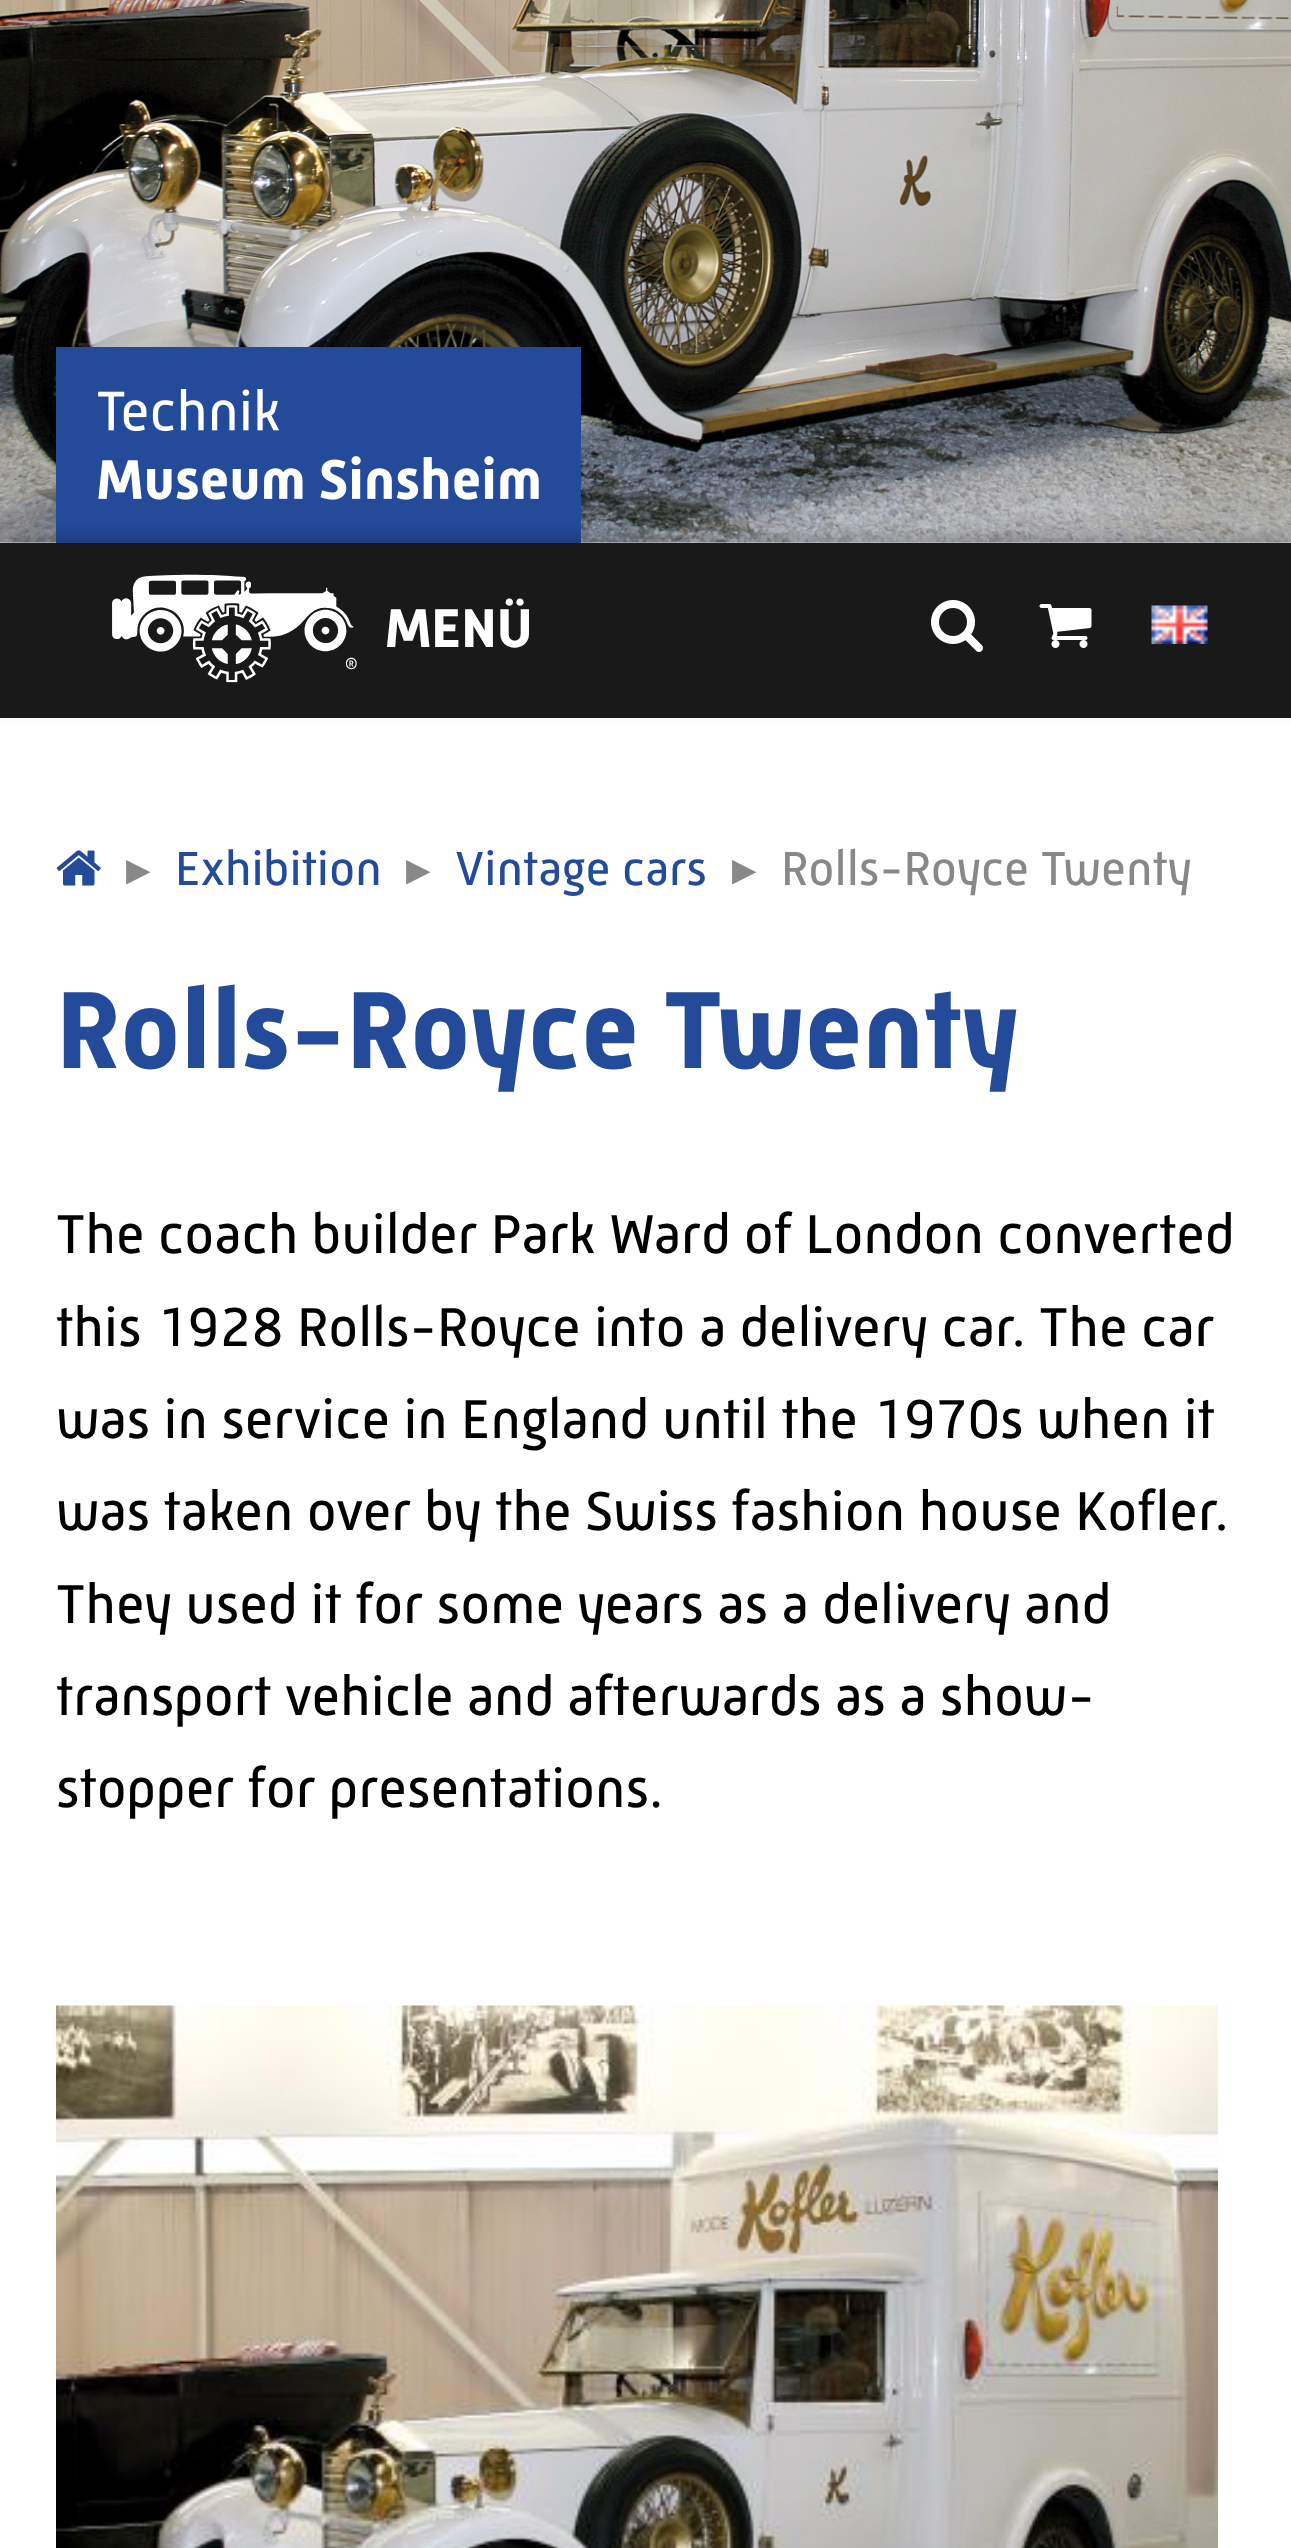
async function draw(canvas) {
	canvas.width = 1291;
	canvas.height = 2548;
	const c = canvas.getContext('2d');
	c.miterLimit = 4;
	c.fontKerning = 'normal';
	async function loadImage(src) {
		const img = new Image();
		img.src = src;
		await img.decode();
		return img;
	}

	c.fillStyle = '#fff';
	c.fillRect(0, 0, 1291, 2548);
	c.drawImage(await loadImage('img1.png'), 0, 0, 1291, 543);
	c.fillStyle = '#244a9a';
	c.fillRect(56, 347, 525, 196);
	c.drawImage(await loadImage('img2.png'), 98, 389, 441, 111);
	c.save();
	c.beginPath();
	c.moveTo(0, 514);
	c.lineTo(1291, 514);
	c.lineTo(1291, 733);
	c.lineTo(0, 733);
	c.closePath();
	c.moveTo(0, 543);
	c.lineTo(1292, 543);
	c.lineTo(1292, 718);
	c.lineTo(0, 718);
	c.closePath();
	c.clip('evenodd');
	c.fillStyle = '#00000033';
	c.filter = 'blur(7px)';
	c.beginPath();
	c.rect(0, 536, 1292, 175);
	c.fill();
	c.filter = 'none';
	c.restore();
	c.fillStyle = '#000000e6';
	c.fillRect(0, 543, 1291, 175);
	c.drawImage(await loadImage('img3.png'), 112, 574, 245, 109);
	c.font = 'bold 56px "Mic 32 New"';
	c.fillStyle = '#fff';
	c.fillText('MENÜ', 385, 647);
	c.drawImage(await loadImage('img4.png'), 931, 600, 52, 52);
	c.drawImage(await loadImage('img5.png'), 1039, 604, 53, 44);
	c.drawImage(await loadImage('img6.png'), 1151, 605, 57, 39);
	c.drawImage(await loadImage('img7.png'), 56, 850, 45, 36);
	c.font = '49px DejaVu Sans';
	c.fillStyle = '#888';
	c.fillText('▸', 126, 885);
	c.font = '49px "Mic 32 New"';
	c.fillStyle = '#244a9a';
	c.fillText('Exhibition', 175, 885);
	c.font = '49px DejaVu Sans';
	c.fillStyle = '#888';
	c.fillText('▸', 406, 885);
	c.font = '49px "Mic 32 New"';
	c.fillStyle = '#244a9a';
	c.fillText('Vintage cars', 455, 885);
	c.font = '49px DejaVu Sans';
	c.fillStyle = '#888';
	c.fillText('▸', 732, 885);
	c.font = '49px "Mic 32 New"';
	c.fillText('Rolls-Royce Twenty', 781, 885);
	c.font = 'bold 112px "Mic 32 New"';
	c.fillStyle = '#244a9a';
	c.fillText('Rolls-Royce Twenty', 56, 1068);
	c.font = '56px "Mic 32 New"';
	c.fillStyle = '#000';
	for (const [text, x, y] of [
		['The coach builder Park Ward of London converted', 56, 1253],
		['this 1928 Rolls-Royce into a delivery car. The car', 56, 1346],
		['was in service in England until the 1970s when it', 56, 1438],
		['was taken over by the Swiss fashion house Kofler.', 56, 1530],
		['They used it for some years as a delivery and', 56, 1623],
		['transport vehicle and afterwards as a show-', 56, 1715],
		['stopper for presentations.', 56, 1807],
	]) {
		c.fillText(text, x, y);
	}
	c.drawImage(await loadImage('img8.png'), 56, 2005, 1162, 543);
}

draw(document.querySelector('canvas'));
